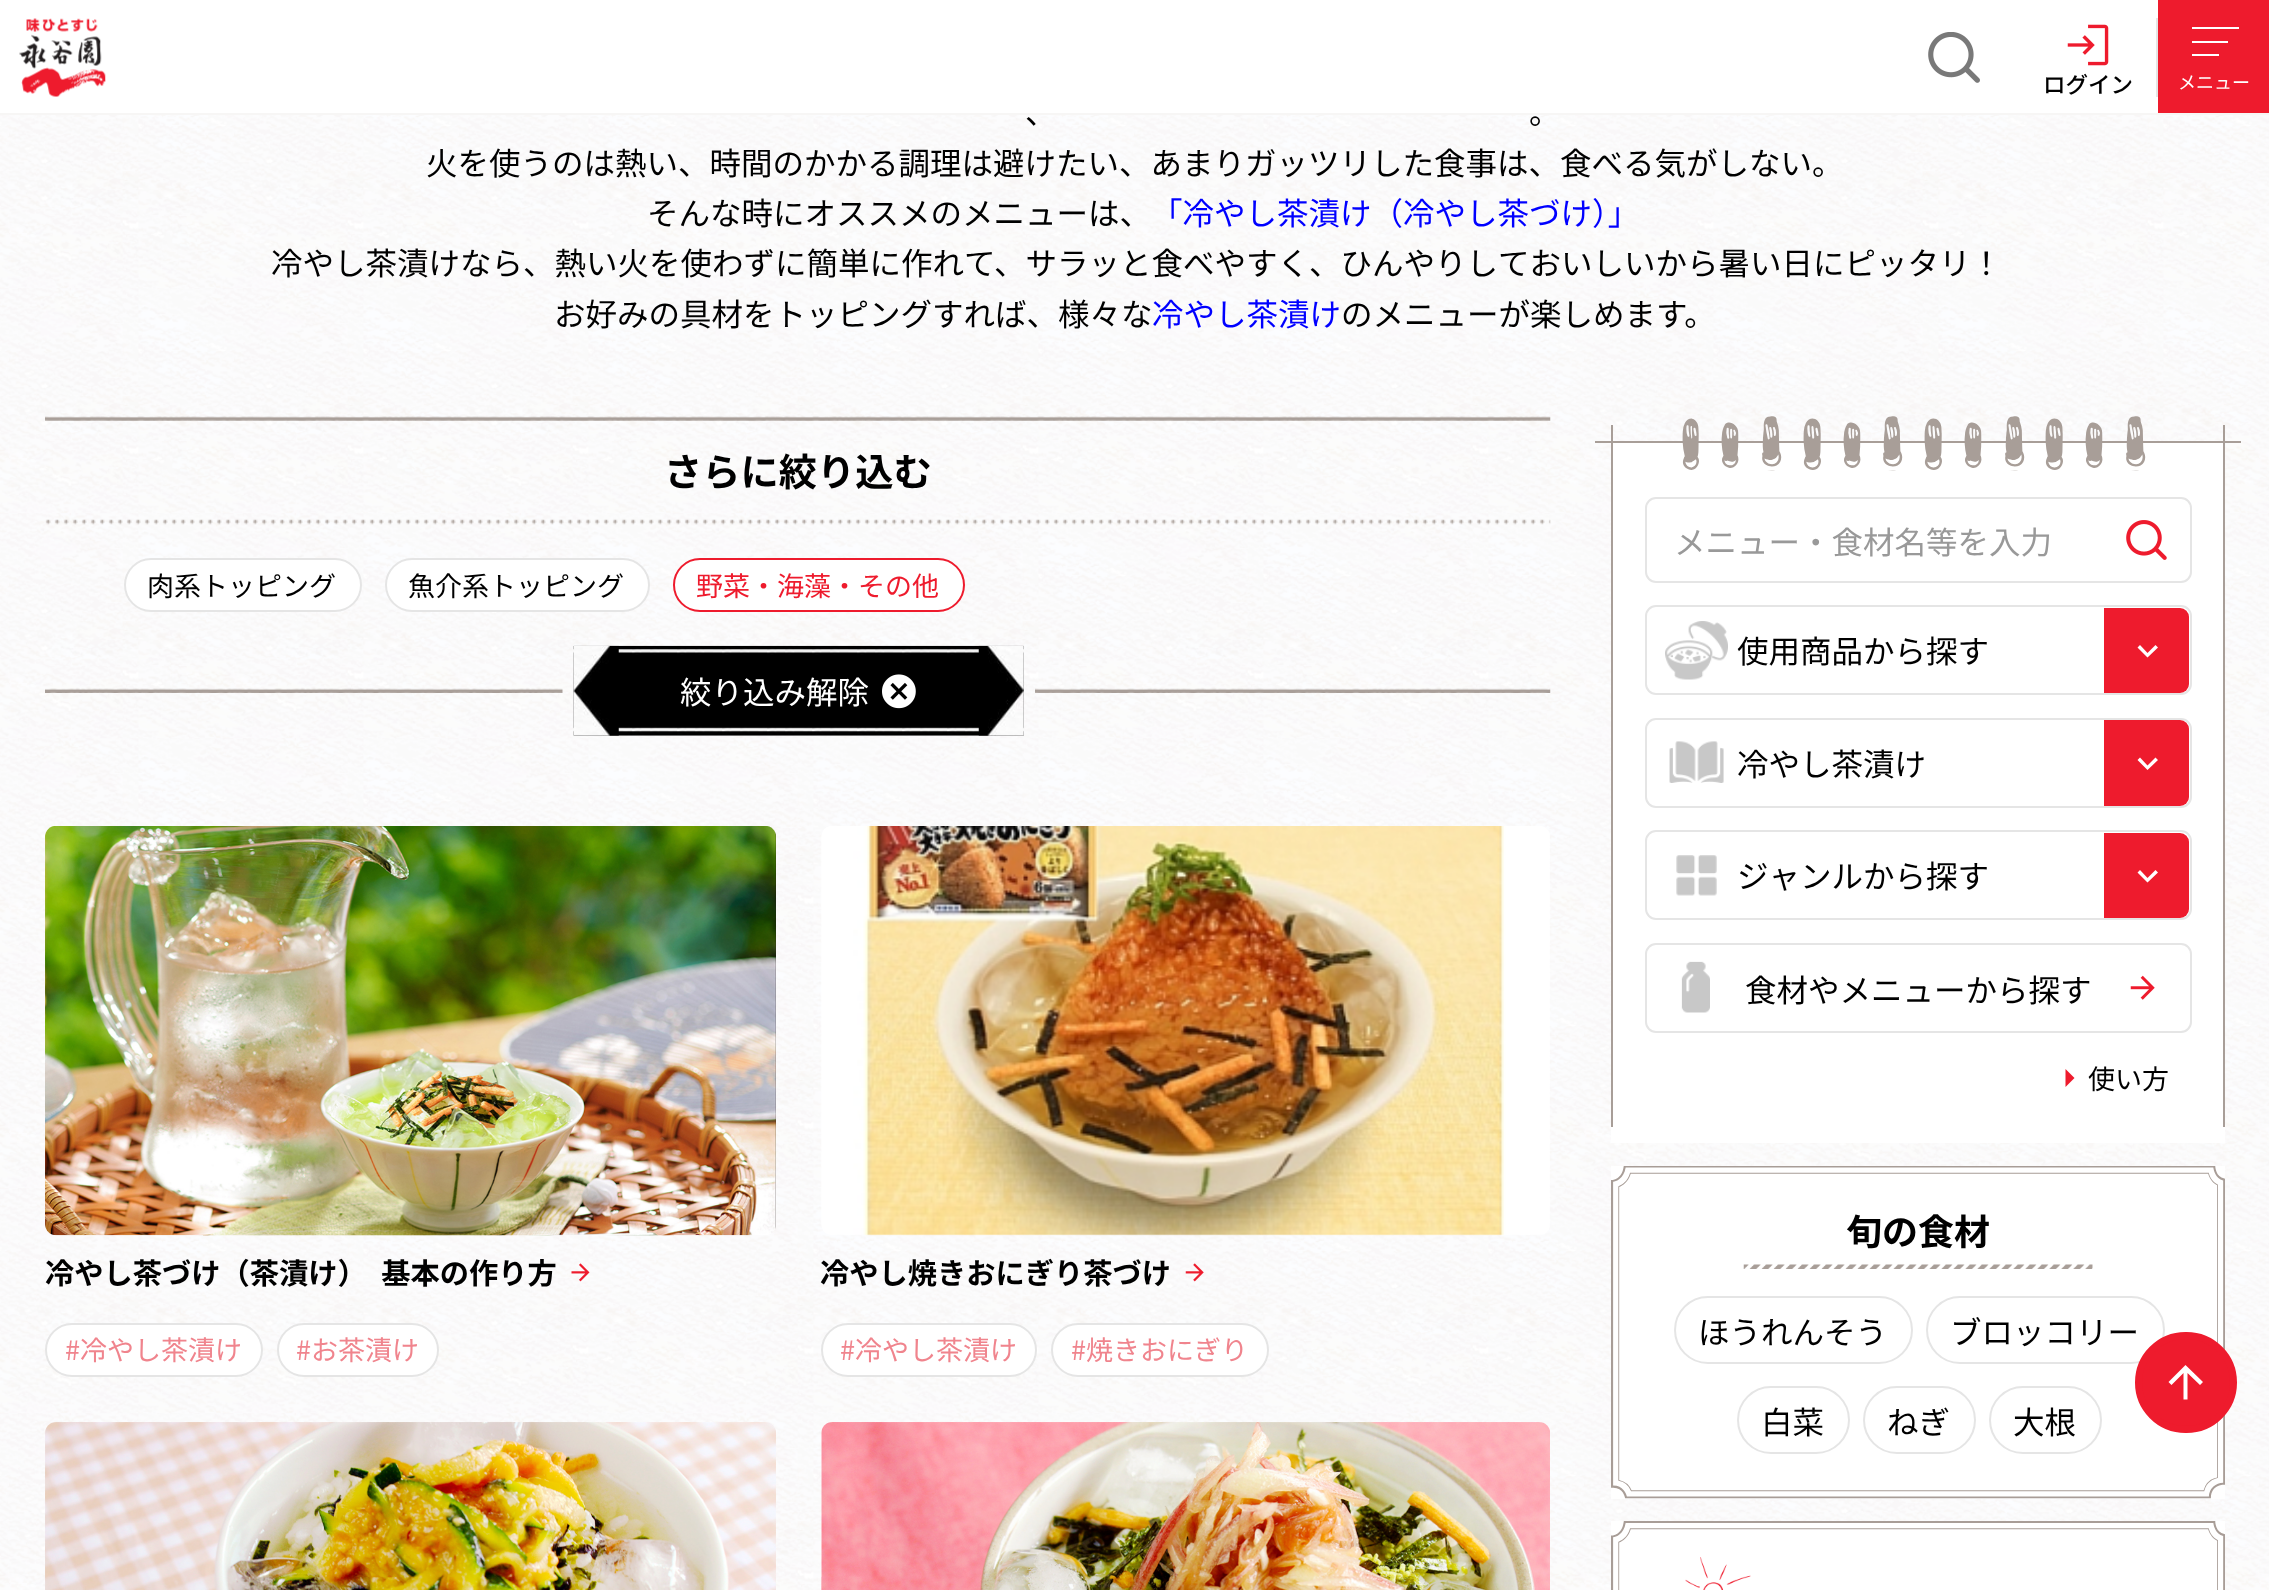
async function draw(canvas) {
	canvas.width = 2269;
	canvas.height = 1590;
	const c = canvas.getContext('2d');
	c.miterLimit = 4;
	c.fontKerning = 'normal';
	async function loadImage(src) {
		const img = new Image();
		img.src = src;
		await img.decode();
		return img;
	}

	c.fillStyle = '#fff';
	c.fillRect(0, 0, 2269, 1590);
	c.drawImage(await loadImage('img1.png'), 0, 115, 2269, 1475);
	c.fillStyle = '#f7f6f5';
	c.fillRect(0, 113, 2269, 2);
	c.drawImage(await loadImage('img2.png'), 19, 18, 87, 79);
	c.drawImage(await loadImage('img3.png'), 1928, 32, 52, 51);
	c.fillStyle = '#e5e5e5';
	c.fillRect(2156, 18, 2, 79);
	c.drawImage(await loadImage('img4.png'), 2067, 24, 42, 42);
	c.font = '500 22.5px Noto Sans JP';
	c.fillStyle = '#000';
	c.fillText('ログイン', 2043, 93);
	for (const [x, y, w, h, color] of [
		[2158, 0, 111, 113, '#ee1b2d'],
		[2192, 41, 36, 2, '#fff'],
		[2192, 27, 47, 2, '#fff'],
		[2192, 54, 27, 2, '#fff'],
	]) {
		c.fillStyle = color;
		c.fillRect(x, y, w, h);
	}
	c.font = '18px Noto Sans JP';
	c.fillText('メニュー', 2178, 89);
	c.font = '31.5px Noto Sans JP';
	c.fillStyle = '#000';
	for (const [text, x, y] of [
		['、', 1025, 124],
		['。', 1529, 124],
		['火を使うのは熱い、時間のかかる調理は避けたい、あまりガッツリした食事は、食べる気がしない。', 426, 175],
		['そんな時にオススメのメニューは、', 647, 225],
	]) {
		c.fillText(text, x, y);
	}
	c.fillStyle = '#00f';
	c.fillText('「冷やし茶漬け（冷やし茶づけ）」', 1151, 225);
	c.fillStyle = '#000';
	c.fillText('冷やし茶漬けなら、熱い火を使わずに簡単に作れて、サラッと食べやすく、ひんやりしておいしいから暑い日にピッタリ！', 271, 275);
	c.fillText('お好みの具材をトッピングすれば、様々な', 554, 326);
	c.fillStyle = '#00f';
	c.fillText('冷やし茶漬け', 1152, 326);
	c.fillStyle = '#000';
	c.fillText('のメニューが楽しめます。', 1341, 326);
	c.drawImage(await loadImage('img5.png'), 45, 416, 1506, 109);
	c.font = 'bold 38.25px Noto Sans JP';
	c.fillText('さらに絞り込む', 664, 486);
	c.fillStyle = '#fff';
	c.beginPath();
	c.roundRect(125, 559, 236, 52, 26);
	c.fill();
	c.strokeStyle = '#e5e5e5';
	c.lineWidth = 2;
	c.stroke();
	c.font = '27px Noto Sans JP';
	c.fillStyle = '#000';
	c.fillText('肉系トッピング', 147, 596);
	c.fillStyle = '#fff';
	c.beginPath();
	c.roundRect(386, 559, 263, 52, 26);
	c.fill();
	c.stroke();
	c.fillStyle = '#000';
	c.fillText('魚介系トッピング', 408, 596);
	c.fillStyle = '#fff';
	c.beginPath();
	c.roundRect(674, 559, 290, 52, 26);
	c.fill();
	c.strokeStyle = '#ee1b2d';
	c.stroke();
	c.fillStyle = '#ee1b2d';
	c.fillText('野菜・海藻・その他', 696, 596);
	c.drawImage(await loadImage('img6.png'), 45, 688, 518, 5);
	c.drawImage(await loadImage('img7.png'), 573, 645, 451, 91);
	c.drawImage(await loadImage('img8.png'), 573, 645, 46, 91);
	c.font = '31.5px Noto Sans JP';
	c.fillStyle = '#fff';
	c.fillText('絞り込み解除', 680, 704);
	c.drawImage(await loadImage('img9.png'), 882, 674, 34, 35);
	c.drawImage(await loadImage('img10.png'), 978, 645, 46, 91);
	c.drawImage(await loadImage('img11.png'), 1035, 688, 516, 5);
	c.drawImage(await loadImage('img12.png'), 45, 826, 731, 410);
	c.font = 'bold 29.25px Noto Sans JP';
	c.fillStyle = '#000';
	c.fillText('冷やし茶づけ（茶漬け）　基本の作り方', 45, 1284);
	c.drawImage(await loadImage('img13.png'), 571, 1263, 19, 19);
	c.fillStyle = '#fff';
	c.beginPath();
	c.roundRect(46, 1324, 216, 52, 26);
	c.fill();
	c.strokeStyle = '#e5e5e5';
	c.stroke();
	c.font = '27px Noto Sans JP';
	c.fillStyle = '#f0848d';
	c.fillText('#冷やし茶漬け', 65, 1360);
	c.fillStyle = '#fff';
	c.beginPath();
	c.roundRect(278, 1324, 160, 52, 26);
	c.fill();
	c.stroke();
	c.fillStyle = '#f0848d';
	c.fillText('#お茶漬け', 296, 1360);
	c.drawImage(await loadImage('img14.png'), 821, 826, 729, 410);
	c.font = 'bold 29.25px Noto Sans JP';
	c.fillStyle = '#000';
	c.fillText('冷やし焼きおにぎり茶づけ', 820, 1284);
	c.drawImage(await loadImage('img15.png'), 1185, 1263, 19, 19);
	c.fillStyle = '#fff';
	c.beginPath();
	c.roundRect(822, 1324, 214, 52, 26);
	c.fill();
	c.stroke();
	c.font = '27px Noto Sans JP';
	c.fillStyle = '#f0848d';
	c.fillText('#冷やし茶漬け', 840, 1360);
	c.fillStyle = '#fff';
	c.beginPath();
	c.roundRect(1052, 1324, 216, 52, 26);
	c.fill();
	c.stroke();
	c.fillStyle = '#f0848d';
	c.fillText('#焼きおにぎり', 1071, 1360);
	c.drawImage(await loadImage('img16.png'), 45, 1422, 731, 168);
	c.drawImage(await loadImage('img17.png'), 821, 1422, 729, 168);
	for (const [x, y, w, h, color] of [
		[1611, 443, 614, 700, '#fff'],
		[1611, 425, 2, 702, '#a89e98'],
		[1595, 441, 646, 2, '#a89e98'],
	]) {
		c.fillStyle = color;
		c.fillRect(x, y, w, h);
	}
	c.drawImage(await loadImage('img18.png'), 1682, 416, 464, 55);
	c.drawImage(await loadImage('img19.png'), 2126, 520, 41, 40);
	c.beginPath();
	c.roundRect(1646, 498, 545, 84, 10);
	c.stroke();
	c.font = '31.5px Noto Sans JP';
	c.fillStyle = '#999';
	c.fillText('メニュー・食材名等を入力', 1674, 554);
	c.drawImage(await loadImage('img20.png'), 1665, 621, 63, 59);
	c.beginPath();
	c.roundRect(1646, 606, 545, 88, 10);
	c.stroke();
	c.fillStyle = '#000';
	c.fillText('使用商品から探す', 1737, 663);
	c.fillStyle = '#ee1b2d';
	c.beginPath();
	c.roundRect(2104, 608, 85, 85, [0, 9, 9, 0]);
	c.fill();
	c.fillStyle = '#fff';
	c.beginPath();
	c.moveTo(2155.5, 645);
	c.lineTo(2158, 647.5);
	c.lineTo(2147.5, 657.5);
	c.lineTo(2137.5, 647.5);
	c.lineTo(2140, 645);
	c.lineTo(2147.5, 653);
	c.closePath();
	c.fill();
	c.drawImage(await loadImage('img21.png'), 1669, 741, 55, 42);
	c.beginPath();
	c.roundRect(1646, 719, 545, 88, 10);
	c.stroke();
	c.fillStyle = '#000';
	c.fillText('冷やし茶漬け', 1737, 776);
	c.fillStyle = '#ee1b2d';
	c.beginPath();
	c.roundRect(2104, 720, 85, 86, [0, 9, 9, 0]);
	c.fill();
	c.fillStyle = '#fff';
	c.beginPath();
	c.moveTo(2155.5, 757.5);
	c.lineTo(2158, 760);
	c.lineTo(2147.5, 770);
	c.lineTo(2137.5, 760);
	c.lineTo(2140, 757.5);
	c.lineTo(2147.5, 765.5);
	c.closePath();
	c.fill();
	c.drawImage(await loadImage('img22.png'), 1676, 855, 41, 41);
	c.beginPath();
	c.roundRect(1646, 831, 545, 88, 10);
	c.stroke();
	c.fillStyle = '#000';
	c.fillText('ジャンルから探す', 1737, 888);
	c.fillStyle = '#ee1b2d';
	c.beginPath();
	c.roundRect(2104, 833, 85, 85, [0, 9, 9, 0]);
	c.fill();
	c.fillStyle = '#fff';
	c.beginPath();
	c.moveTo(2155.5, 870);
	c.lineTo(2158, 872.5);
	c.lineTo(2147.5, 882.5);
	c.lineTo(2137.5, 872.5);
	c.lineTo(2140, 870);
	c.lineTo(2147.5, 878);
	c.closePath();
	c.fill();
	c.beginPath();
	c.roundRect(1646, 944, 545, 88, 10);
	c.stroke();
	c.drawImage(await loadImage('img23.png'), 1681, 961, 29, 52);
	c.fillStyle = '#000';
	c.fillText('食材やメニューから探す', 1745, 1002);
	c.drawImage(await loadImage('img24.png'), 2130, 975, 25, 25);
	c.fillStyle = '#ee1b2d';
	c.beginPath();
	c.moveTo(2065.5, 1087);
	c.lineTo(2065.5, 1069);
	c.lineTo(2074.5, 1078);
	c.closePath();
	c.fill();
	c.font = '27px Noto Sans JP';
	c.fillStyle = '#000';
	c.fillText('使い方', 2088, 1089);
	c.fillStyle = '#a89e98';
	c.fillRect(2223, 425, 2, 702);
	c.fillStyle = '#fff';
	c.fillRect(1611, 1166, 614, 333);
	c.drawImage(await loadImage('img25.png'), 1611, 1166, 614, 333);
	c.font = 'bold 36px Noto Sans JP';
	c.fillStyle = '#000';
	c.fillText('旬の⾷材', 1846, 1245);
	c.drawImage(await loadImage('img26.png'), 1743, 1264, 350, 5);
	c.beginPath();
	c.roundRect(1675, 1297, 237, 66, 33);
	c.stroke();
	c.font = '31.5px Noto Sans JP';
	c.fillText('ほうれんそう', 1698, 1344);
	c.beginPath();
	c.roundRect(1927, 1297, 237, 66, 33);
	c.stroke();
	c.fillText('ブロッコリー', 1950, 1344);
	c.beginPath();
	c.roundRect(1738, 1387, 111, 66, 33);
	c.stroke();
	c.fillText('白菜', 1761, 1434);
	c.beginPath();
	c.roundRect(1864, 1387, 111, 66, 33);
	c.stroke();
	c.fillText('ねぎ', 1887, 1434);
	c.beginPath();
	c.roundRect(1990, 1387, 111, 66, 33);
	c.stroke();
	c.fillText('大根', 2013, 1434);
	c.fillStyle = '#fff';
	c.fillRect(1611, 1521, 614, 69);
	c.drawImage(await loadImage('img27.png'), 1611, 1521, 614, 69);
	c.drawImage(await loadImage('img28.png'), 1685, 1557, 66, 33);
	c.fillStyle = '#ee1b2d';
	c.beginPath();
	c.roundRect(2138.5, 1335.5, 95, 94, 47);
	c.fill();
	c.strokeStyle = '#ee1b2d';
	c.lineWidth = 7;
	c.stroke();
	c.fillStyle = '#fff';
	c.beginPath();
	c.moveTo(2168.5, 1382);
	c.lineTo(2185.5, 1365);
	c.lineTo(2203, 1382);
	c.lineTo(2200, 1385);
	c.lineTo(2187.5, 1373);
	c.lineTo(2187.5, 1399.5);
	c.lineTo(2183.5, 1399.5);
	c.lineTo(2183.5, 1373);
	c.lineTo(2171.5, 1385);
	c.closePath();
	c.fill();
}

draw(document.querySelector('canvas'));
